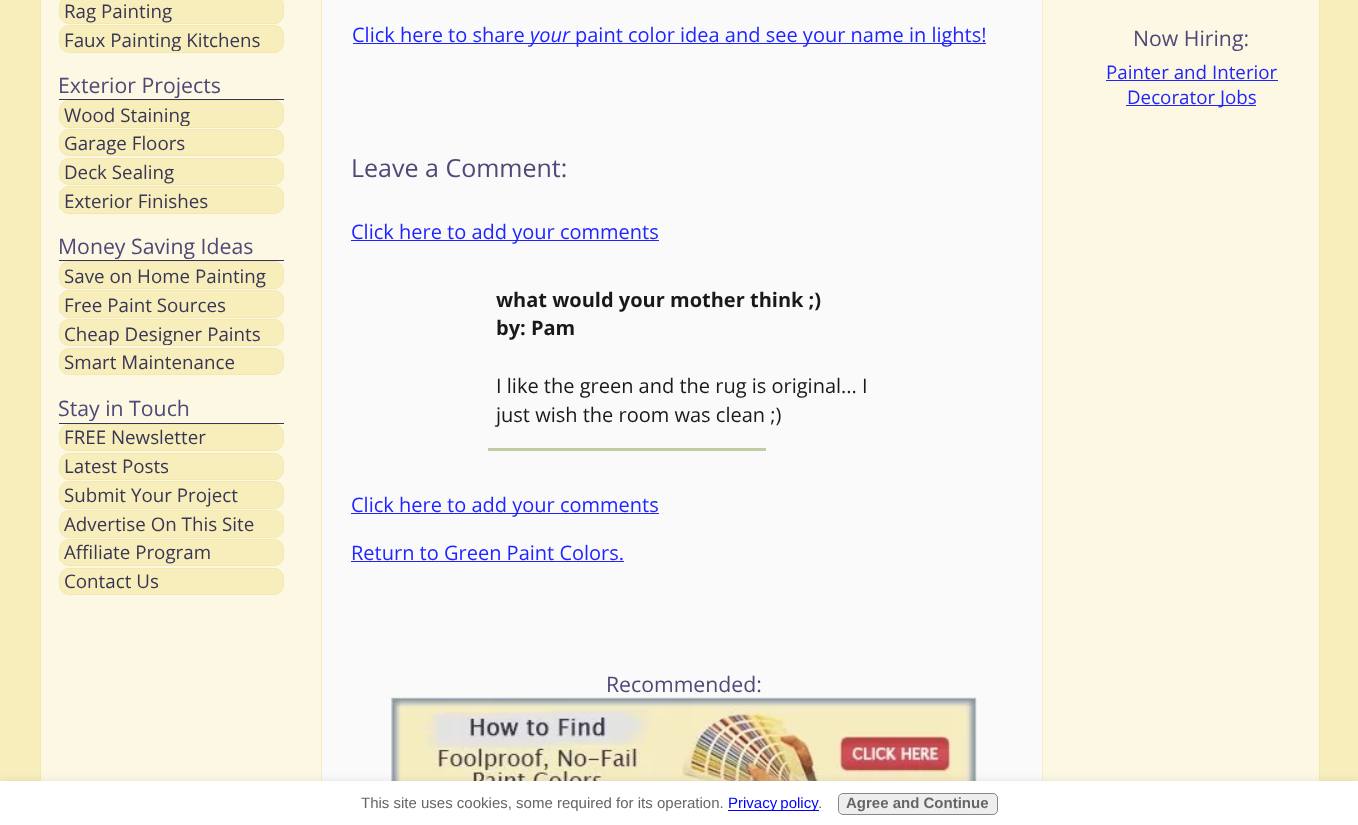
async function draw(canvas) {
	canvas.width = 1358;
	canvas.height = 825;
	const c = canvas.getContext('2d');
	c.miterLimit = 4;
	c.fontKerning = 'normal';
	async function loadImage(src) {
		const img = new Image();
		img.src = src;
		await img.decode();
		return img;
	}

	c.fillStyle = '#f7eebc';
	c.fillRect(0, 0, 1358, 825);
	c.fillStyle = '#fcf8e3';
	c.fillRect(41, 0, 1278, 781);
	c.strokeStyle = '#f2e8b0';
	c.strokeRect(40.5, -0.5, 1279, 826);
	c.fillStyle = '#f7eebc';
	c.beginPath();
	c.roundRect(59.5, -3.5, 224, 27, 9.5);
	c.fill();
	c.stroke();
	c.font = '18.75px Open Sans';
	c.fillStyle = '#383653';
	c.fillText('Rag Painting', 64, 18);
	c.fillStyle = '#f7eebc';
	c.beginPath();
	c.roundRect(59.5, 25.5, 224, 27, 9.5);
	c.fill();
	c.stroke();
	c.save();
	c.beginPath();
	c.roundRect(60, 26, 223, 25, 9);
	c.clip();
	c.fillStyle = '#383653';
	c.fillText('Faux Painting Kitchens', 64, 47);
	c.restore();
	c.fillStyle = '#383653';
	c.fillRect(59, 99, 225, 1);
	c.font = '21.25px Open Sans';
	c.fillStyle = '#4f4978';
	c.fillText('Exterior Projects', 58, 93);
	c.fillStyle = '#f7eebc';
	c.beginPath();
	c.roundRect(59.5, 100.5, 224, 27, 9.5);
	c.fill();
	c.stroke();
	c.save();
	c.beginPath();
	c.roundRect(60, 101, 223, 25, 9);
	c.clip();
	c.font = '18.75px Open Sans';
	c.fillStyle = '#383653';
	c.fillText('Wood Staining', 64, 122);
	c.restore();
	c.beginPath();
	c.roundRect(59.5, 129.5, 224, 26, 9.5);
	c.fill();
	c.stroke();
	c.font = '18.75px Open Sans';
	c.fillStyle = '#383653';
	c.fillText('Garage Floors', 64, 150);
	c.fillStyle = '#f7eebc';
	c.beginPath();
	c.roundRect(59.5, 158.5, 224, 26, 9.5);
	c.fill();
	c.stroke();
	c.fillStyle = '#383653';
	c.fillText('Deck Sealing', 64, 179);
	c.fillStyle = '#f7eebc';
	c.beginPath();
	c.roundRect(59.5, 186.5, 224, 27, 9.5);
	c.fill();
	c.stroke();
	c.fillStyle = '#383653';
	c.fillText('Exterior Finishes', 64, 208);
	c.fillRect(59, 260, 225, 1);
	c.font = '21.25px Open Sans';
	c.fillStyle = '#4f4978';
	c.fillText('Money Saving Ideas', 58, 254);
	c.fillStyle = '#f7eebc';
	c.beginPath();
	c.roundRect(59.5, 261.5, 224, 27, 9.5);
	c.fill();
	c.stroke();
	c.font = '18.75px Open Sans';
	c.fillStyle = '#383653';
	c.fillText('Save on Home Painting', 64, 283);
	c.fillStyle = '#f7eebc';
	c.beginPath();
	c.roundRect(59.5, 290.5, 224, 27, 9.5);
	c.fill();
	c.stroke();
	c.fillStyle = '#383653';
	c.fillText('Free Paint Sources', 64, 312);
	c.fillStyle = '#f7eebc';
	c.beginPath();
	c.roundRect(59.5, 319.5, 224, 26, 9.5);
	c.fill();
	c.stroke();
	c.save();
	c.beginPath();
	c.roundRect(60, 320, 223, 25, 9);
	c.clip();
	c.fillStyle = '#383653';
	c.fillText('Cheap Designer Paints', 64, 341);
	c.restore();
	c.beginPath();
	c.roundRect(59.5, 348.5, 224, 26, 9.5);
	c.fill();
	c.stroke();
	c.fillStyle = '#383653';
	c.fillText('Smart Maintenance', 64, 369);
	c.fillRect(59, 423, 225, 1);
	c.font = '21.25px Open Sans';
	c.fillStyle = '#4f4978';
	c.fillText('Stay in Touch', 58, 416);
	c.fillStyle = '#f7eebc';
	c.beginPath();
	c.roundRect(59.5, 424.5, 224, 26, 9.5);
	c.fill();
	c.stroke();
	c.font = '18.75px Open Sans';
	c.fillStyle = '#383653';
	c.fillText('FREE Newsletter', 64, 444);
	c.fillStyle = '#f7eebc';
	c.beginPath();
	c.roundRect(59.5, 453.5, 224, 26, 9.5);
	c.fill();
	c.stroke();
	c.fillStyle = '#383653';
	c.fillText('Latest Posts', 64, 473);
	c.fillStyle = '#f7eebc';
	c.beginPath();
	c.roundRect(59.5, 481.5, 224, 27, 9.5);
	c.fill();
	c.stroke();
	c.fillStyle = '#383653';
	c.fillText('Submit Your Project', 64, 502);
	c.fillStyle = '#f7eebc';
	c.beginPath();
	c.roundRect(59.5, 510.5, 224, 27, 9.5);
	c.fill();
	c.stroke();
	c.fillStyle = '#383653';
	c.fillText('Advertise On This Site', 64, 531);
	c.fillStyle = '#f7eebc';
	c.beginPath();
	c.roundRect(59.5, 539.5, 224, 26, 9.5);
	c.fill();
	c.stroke();
	c.fillStyle = '#383653';
	c.fillText('Affiliate Program', 64, 559);
	c.fillStyle = '#f7eebc';
	c.beginPath();
	c.roundRect(59.5, 568.5, 224, 26, 9.5);
	c.fill();
	c.stroke();
	c.fillStyle = '#383653';
	c.fillText('Contact Us', 64, 588);
	c.fillStyle = '#fafafa';
	c.fillRect(322, 0, 720, 781);
	c.strokeStyle = '#f5edc1';
	c.strokeRect(321.5, -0.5, 721, 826);
	c.font = '20px Open Sans';
	c.fillStyle = '#2025ff';
	c.fillText('Click here to share', 352, 42);
	c.fillRect(353, 43, 217, 1);
	c.font = 'italic 20px Open Sans';
	c.fillText('your', 530, 42);
	c.fillRect(570, 43, 416, 1);
	c.font = '20px Open Sans';
	c.fillText('paint color idea and see your name in lights!', 575, 42);
	c.font = '25px Open Sans';
	c.fillStyle = '#4f4978';
	c.fillText('Leave a Comment:', 351, 177);
	c.fillStyle = '#2025ff';
	c.fillRect(351, 240, 308, 1);
	c.font = '20px Open Sans';
	c.fillText('Click here to add your comments', 351, 239);
	c.font = 'bold 20px Open Sans';
	c.fillStyle = '#191919';
	c.fillText('what would your mother think ;)', 496, 307);
	c.fillText('by: Pam', 496, 335);
	c.font = '20px Open Sans';
	c.fillText('I like the green and the rug is original... I', 496, 393);
	c.fillText('just wish the room was clean ;)', 496, 422);
	c.fillStyle = '#c0cca3';
	c.fillRect(488, 448, 278, 3);
	c.fillStyle = '#2025ff';
	c.fillRect(351, 513, 308, 1);
	c.fillText('Click here to add your comments', 351, 512);
	c.fillText('Return to Green Paint Colors.', 351, 560);
	c.fillRect(351, 561, 273, 1);
	c.font = '21.25px Open Sans';
	c.fillStyle = '#4f4978';
	c.fillText('Recommended:', 606, 692);
	c.drawImage(await loadImage('img1.png'), 391, 697, 586, 84);
	c.fillText('Now Hiring:', 1133, 46);
	c.font = '18.75px Open Sans';
	c.fillStyle = '#2025ff';
	c.fillText('Painter and Interior', 1106, 79);
	c.fillRect(1106, 80, 172, 1);
	c.fillRect(1126, 105, 130, 1);
	c.fillText('Decorator Jobs', 1127, 104);
	c.fillStyle = '#00000033';
	c.filter = 'blur(6px)';
	c.beginPath();
	c.rect(-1, 785, 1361, 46);
	c.fill();
	c.filter = 'none';
	c.fillStyle = '#fff';
	c.fillRect(0, 781, 1358, 44);
	c.font = '15px Liberation Sans';
	c.fillStyle = '#666';
	c.fillText('This site uses cookies, some required for its operation.', 361, 808);
	c.fillStyle = '#00f';
	c.fillRect(728, 810, 91, 1);
	c.wordSpacing = '-1px';
	c.fillText('Privacy policy', 728, 808);
	c.wordSpacing = '0px';
	c.fillStyle = '#666';
	c.fillText('.', 818, 808);
	c.fillStyle = '#eee';
	c.beginPath();
	c.roundRect(838.5, 793.5, 159, 21, 4.5);
	c.fill();
	c.strokeStyle = '#888';
	c.stroke();
	c.font = 'bold 15px Liberation Sans';
	c.fillStyle = '#666';
	c.fillText('Agree and Continue', 846, 808);
}

draw(document.querySelector('canvas'));
